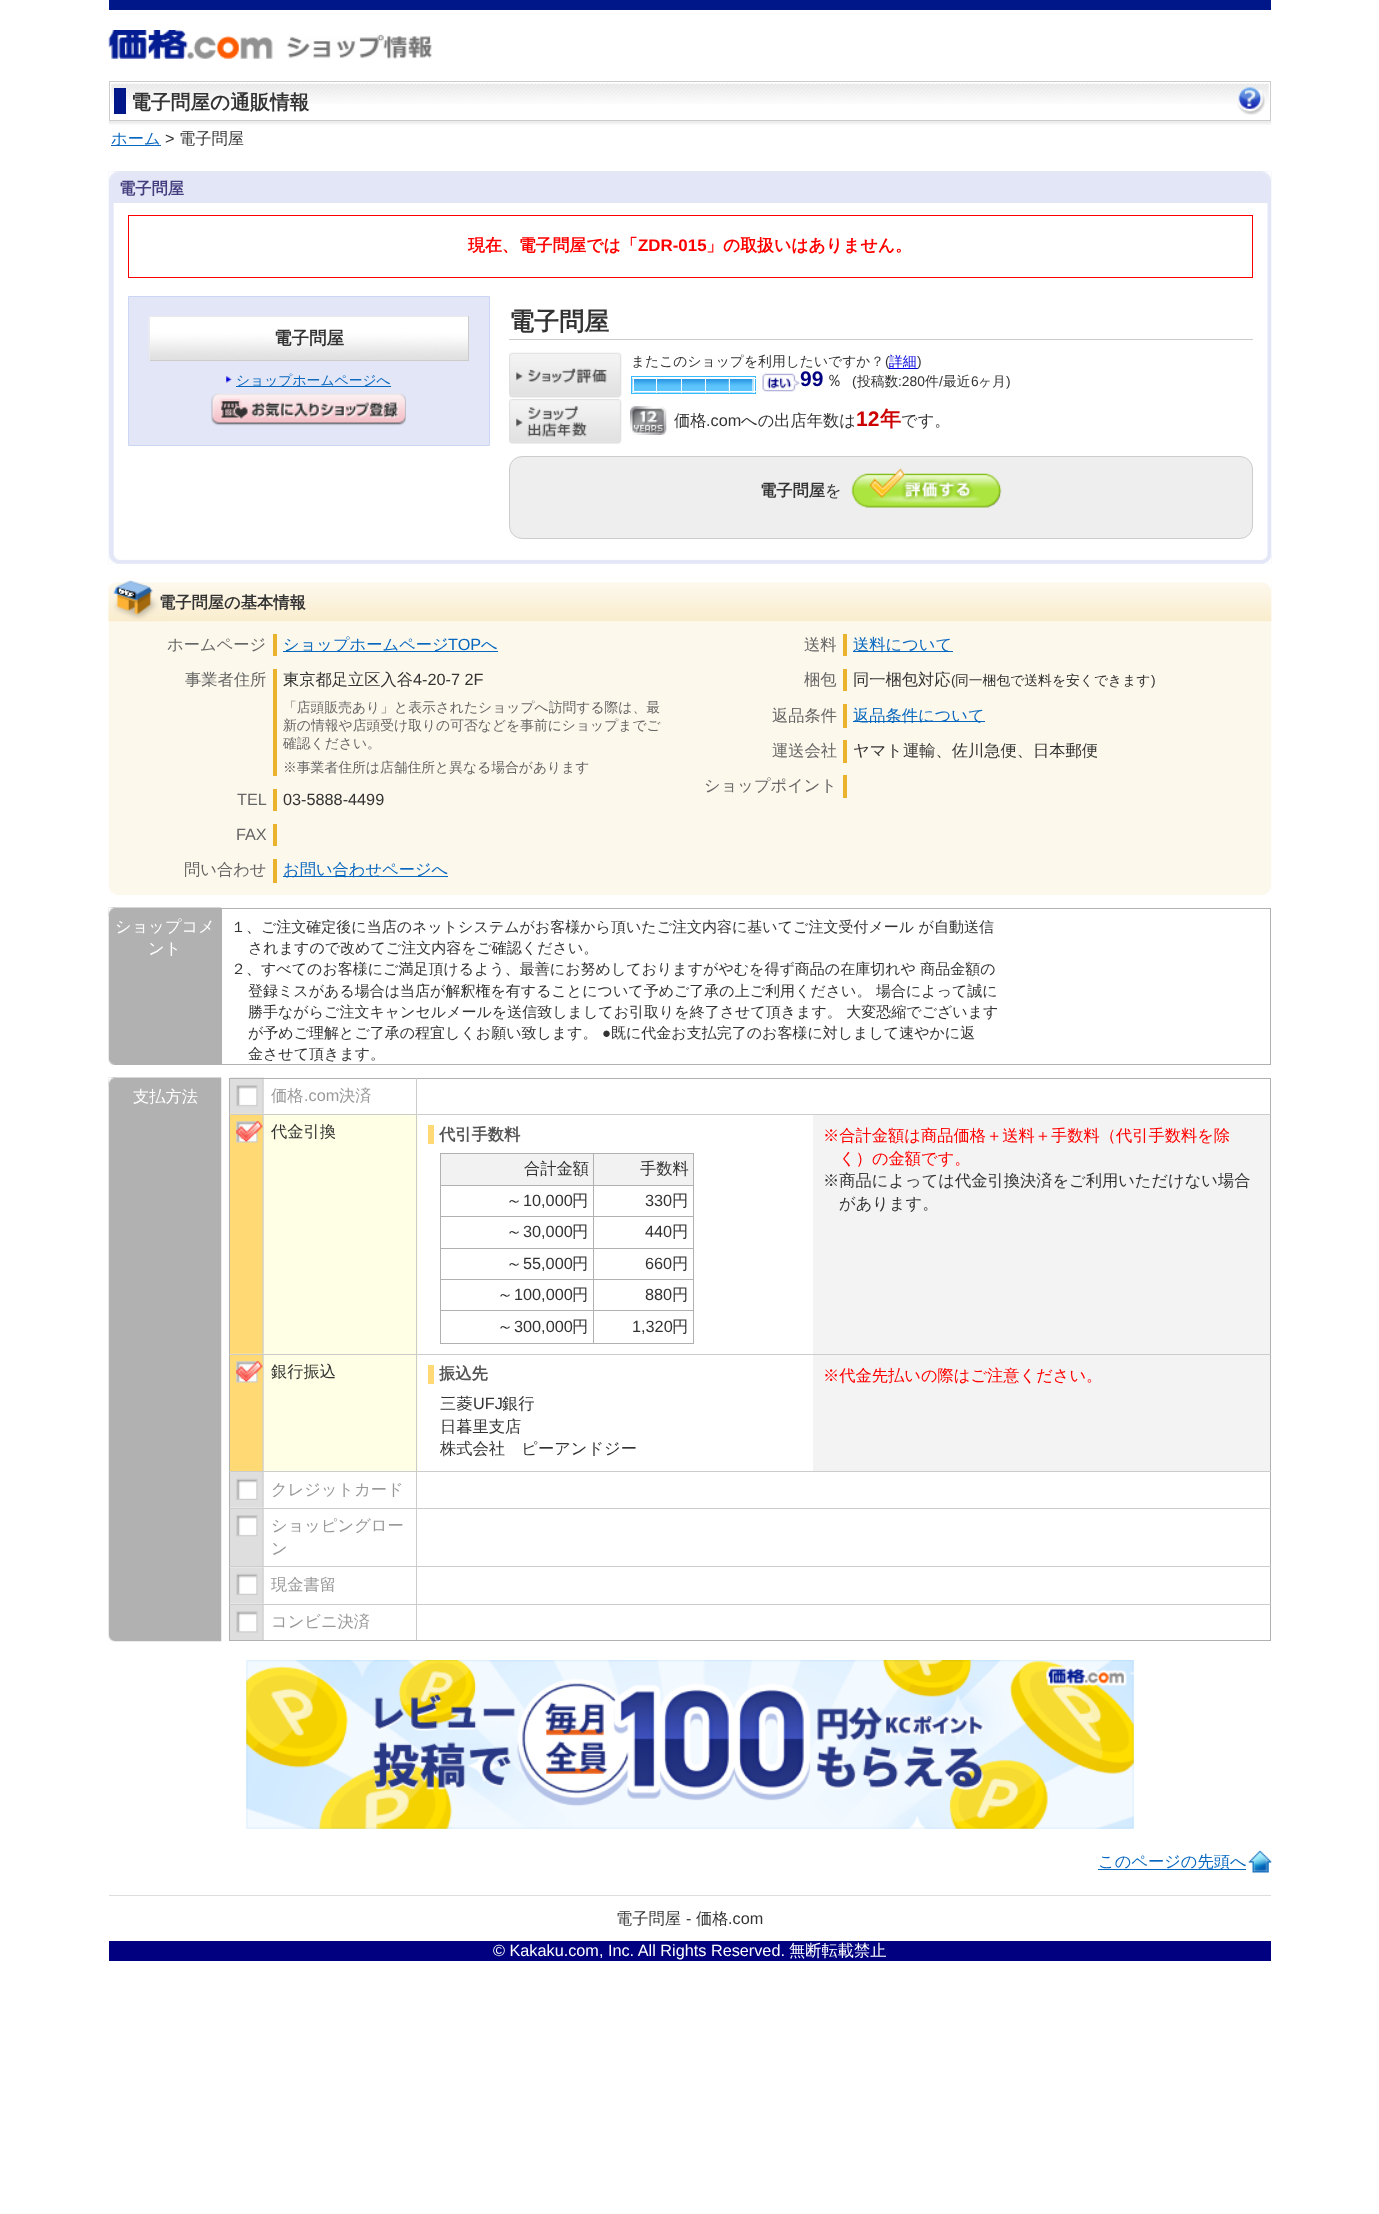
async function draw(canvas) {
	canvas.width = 1379;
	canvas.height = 2214;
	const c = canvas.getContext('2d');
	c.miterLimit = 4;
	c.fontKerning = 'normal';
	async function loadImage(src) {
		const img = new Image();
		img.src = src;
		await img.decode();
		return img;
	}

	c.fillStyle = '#fff';
	c.fillRect(0, 0, 1379, 2214);
	c.fillStyle = '#001789';
	c.fillRect(109, 0, 1162, 10);
	c.drawImage(await loadImage('img1.png'), 108, 30, 165, 29);
	c.drawImage(await loadImage('img2.png'), 287, 34, 145, 25);
	c.drawImage(await loadImage('img3.png'), 108, 121, 1164, 4);
	c.strokeStyle = '#ccc';
	c.strokeRect(109.5, 81.5, 1161, 39);
	c.drawImage(await loadImage('img4.png'), 111, 83, 1158, 21);
	c.fillRect(114, 88, 12, 26);
	c.font = 'bold 19.75px WenQuanYi Zen Hei';
	c.fillStyle = '#333';
	c.fillText('電子問屋の通販情報', 131, 109);
	c.drawImage(await loadImage('img5.png'), 1237, 87, 28, 28);
	c.fillStyle = '#0867bf';
	c.fillRect(111, 145, 50, 1);
	c.font = '500 16.25px WenQuanYi Zen Hei';
	c.fillText('ホーム', 111, 144);
	c.font = '16.25px Liberation Sans';
	c.fillStyle = '#333';
	c.fillText('>', 165, 144);
	c.font = '500 16.25px WenQuanYi Zen Hei';
	c.fillText('電子問屋', 179, 144);
	c.drawImage(await loadImage('img6.png'), 108, 171, 1164, 393);
	c.drawImage(await loadImage('img7.png'), 109, 555, 1163, 9);
	c.fillStyle = '#e2e6f6';
	c.fillRect(109, 171, 1162, 32);
	c.drawImage(await loadImage('img8.png'), 109, 171, 1162, 9);
	c.font = 'bold 16.25px WenQuanYi Zen Hei';
	c.fillStyle = '#443e7e';
	c.fillText('電子問屋', 119, 194);
	c.strokeStyle = '#f00';
	c.strokeRect(128.5, 215.5, 1124, 62);
	c.font = 'bold 16.9px WenQuanYi Zen Hei';
	c.fillStyle = '#f00';
	c.fillText('現在、電子問屋では「', 468, 251);
	c.font = 'bold 16.9px Liberation Sans';
	c.fillText('ZDR-015', 638, 251);
	c.font = 'bold 16.9px WenQuanYi Zen Hei';
	c.fillText('」の取扱いはありません。', 706, 251);
	c.fillStyle = '#e2e6f6';
	c.beginPath();
	c.rect(128.5, 296.5, 361, 149);
	c.fill();
	c.strokeStyle = '#cbd6f5';
	c.stroke();
	c.drawImage(await loadImage('img9.png'), 148, 316, 320, 44);
	for (const [x, y, w, h, color] of [
		[149, 316, 320, 1, '#eaeaea'],
		[468, 316, 1, 45, '#ccc'],
		[149, 360, 320, 1, '#ccc'],
		[149, 316, 1, 45, '#eaeaea'],
	]) {
		c.fillStyle = color;
		c.fillRect(x, y, w, h);
	}
	c.font = 'bold 17.5px WenQuanYi Zen Hei';
	c.fillStyle = '#333';
	c.fillText('電子問屋', 274, 344);
	c.drawImage(await loadImage('img10.png'), 226, 376, 6, 7);
	c.fillStyle = '#0867bf';
	c.fillRect(236, 386, 155, 1);
	c.font = '500 13.8px WenQuanYi Zen Hei';
	c.fillText('ショップホームページへ', 236, 385);
	c.drawImage(await loadImage('img11.png'), 211, 393, 195, 33);
	c.fillStyle = '#ccc';
	c.fillRect(509, 339, 744, 1);
	c.font = 'bold 25px WenQuanYi Zen Hei';
	c.fillStyle = '#333';
	c.fillText('電子問屋', 509, 330);
	c.drawImage(await loadImage('img12.png'), 509, 352, 113, 46);
	c.font = '500 13.8px WenQuanYi Zen Hei';
	c.fillText('またこのショップを利用したいですか？', 631, 366);
	c.font = '13.8px Liberation Sans';
	c.fillText('(', 885, 366);
	c.font = '500 13.8px WenQuanYi Zen Hei';
	c.fillStyle = '#00d';
	c.fillText('詳細', 889, 366);
	c.fillRect(889, 368, 29, 1);
	c.font = '13.8px Liberation Sans';
	c.fillStyle = '#333';
	c.fillText(')', 917, 366);
	c.strokeStyle = '#37bbfe';
	c.strokeRect(631.5, 376.5, 124, 17);
	c.drawImage(await loadImage('img13.png'), 632, 378, 24, 15);
	for (const [x, y, w, h, color] of [
		[633, 378, 23, 1, '#fff'],
		[633, 391, 23, 1, '#fff'],
		[633, 378, 1, 15, '#fff'],
	]) {
		c.fillStyle = color;
		c.fillRect(x, y, w, h);
	}
	c.drawImage(await loadImage('img14.png'), 657, 379, 24, 14);
	c.fillRect(656, 391, 25, 1);
	c.drawImage(await loadImage('img15.png'), 682, 379, 23, 14);
	c.fillRect(681, 391, 24, 1);
	c.drawImage(await loadImage('img16.png'), 706, 379, 23, 14);
	c.fillRect(705, 391, 24, 1);
	c.drawImage(await loadImage('img17.png'), 728, 378, 25, 15);
	for (const [x, y, w, h, color] of [
		[729, 378, 24, 1, '#fff'],
		[729, 391, 24, 1, '#fff'],
		[729, 378, 1, 15, '#fff'],
	]) {
		c.fillStyle = color;
		c.fillRect(x, y, w, h);
	}
	c.drawImage(await loadImage('img18.png'), 752, 378, 2, 15);
	c.fillRect(753, 378, 3, 1);
	c.fillRect(753, 391, 3, 1);
	c.drawImage(await loadImage('img19.png'), 762, 373, 38, 19);
	c.font = 'bold 21px Liberation Sans';
	c.fillStyle = '#000080';
	c.fillText('99', 800, 386);
	c.font = '500 16.25px WenQuanYi Zen Hei';
	c.fillStyle = '#333';
	c.fillText('％', 826, 386);
	c.font = '13.8px Liberation Sans';
	c.fillText('(', 852, 386);
	c.font = '500 13.8px WenQuanYi Zen Hei';
	c.fillText('投稿数', 857, 386);
	c.font = '13.8px Liberation Sans';
	c.fillText(':280', 898, 386);
	c.font = '500 13.8px WenQuanYi Zen Hei';
	c.fillText('件', 925, 386);
	c.font = '13.8px Liberation Sans';
	c.fillText('/', 939, 386);
	c.font = '500 13.8px WenQuanYi Zen Hei';
	c.fillText('最近', 943, 386);
	c.font = '13.8px Liberation Sans';
	c.fillText('6', 971, 386);
	c.font = '500 13.8px WenQuanYi Zen Hei';
	c.fillText('ヶ月', 978, 386);
	c.font = '13.8px Liberation Sans';
	c.fillText(')', 1006, 386);
	c.drawImage(await loadImage('img20.png'), 509, 399, 113, 45);
	c.drawImage(await loadImage('img21.png'), 630, 406, 37, 29);
	c.font = '500 16.25px WenQuanYi Zen Hei';
	c.fillText('価格', 674, 426);
	c.font = '16.25px Liberation Sans';
	c.fillText('.com', 706, 426);
	c.font = '500 16.25px WenQuanYi Zen Hei';
	c.fillText('への出店年数は', 741, 426);
	c.font = 'bold 21px Liberation Sans';
	c.fillStyle = '#c00';
	c.fillText('12', 856, 426);
	c.font = 'bold 21px WenQuanYi Zen Hei';
	c.fillText('年', 880, 426);
	c.font = '500 16.25px WenQuanYi Zen Hei';
	c.fillStyle = '#333';
	c.fillText('です。', 901, 426);
	c.fillStyle = '#eee';
	c.beginPath();
	c.roundRect(509.5, 456.5, 743, 82, 12.5);
	c.fill();
	c.strokeStyle = '#ccc';
	c.stroke();
	c.font = 'bold 16.25px WenQuanYi Zen Hei';
	c.fillStyle = '#333';
	c.fillText('電子問屋', 760, 496);
	c.font = '500 16.25px WenQuanYi Zen Hei';
	c.fillText('を', 825, 496);
	c.drawImage(await loadImage('img22.png'), 851, 468, 151, 40);
	c.drawImage(await loadImage('img23.png'), 108, 578, 1164, 317);
	c.drawImage(await loadImage('img24.png'), 108, 579, 1164, 43);
	c.drawImage(await loadImage('img25.png'), 108, 580, 53, 42);
	c.font = 'bold 16.25px WenQuanYi Zen Hei';
	c.fillText('電子問屋の基本情報', 159, 608);
	c.font = '500 16.25px WenQuanYi Zen Hei';
	c.fillStyle = '#666';
	c.fillText('ホームページ', 167, 650);
	c.fillStyle = '#ebb32d';
	c.fillRect(273, 634, 4, 22);
	c.fillStyle = '#0867bf';
	c.fillRect(283, 651, 215, 1);
	c.fillText('ショップホームページ', 283, 650);
	c.font = '16.25px Liberation Sans';
	c.fillText('TOP', 448, 650);
	c.font = '500 16.25px WenQuanYi Zen Hei';
	c.fillText('へ', 481, 650);
	c.fillStyle = '#666';
	c.fillText('事業者住所', 185, 685);
	c.fillStyle = '#ebb32d';
	c.fillRect(273, 669, 4, 107);
	c.fillStyle = '#333';
	c.fillText('東京都足立区入谷', 283, 685);
	c.font = '16.25px Liberation Sans';
	c.fillText('4-20-7 2F', 413, 685);
	c.font = '500 13.8px WenQuanYi Zen Hei';
	c.fillStyle = '#666';
	for (const [text, x, y] of [
		['「店頭販売あり」と表示されたショップへ訪問する際は、最', 283, 712],
		['新の情報や店頭受け取りの可否などを事前にショップまでご', 283, 730],
		['確認ください。', 283, 748],
		['※事業者住所は店舗住所と異なる場合があります', 283, 772],
	]) {
		c.fillText(text, x, y);
	}
	c.font = '16.25px Liberation Sans';
	c.fillText('TEL', 237, 805);
	c.fillStyle = '#ebb32d';
	c.fillRect(273, 789, 4, 22);
	c.fillStyle = '#333';
	c.fillText('03-5888-4499', 283, 805);
	c.fillStyle = '#666';
	c.fillText('FAX', 236, 840);
	c.fillStyle = '#ebb32d';
	c.fillRect(273, 824, 4, 22);
	c.font = '500 16.25px WenQuanYi Zen Hei';
	c.fillStyle = '#666';
	c.fillText('問い合わせ', 184, 875);
	c.fillStyle = '#ebb32d';
	c.fillRect(273, 859, 4, 24);
	c.fillStyle = '#0867bf';
	c.fillRect(283, 876, 165, 1);
	c.fillText('お問い合わせページへ', 283, 875);
	c.fillStyle = '#666';
	c.fillText('送料', 804, 650);
	c.fillStyle = '#ebb32d';
	c.fillRect(843, 634, 4, 22);
	c.fillStyle = '#0867bf';
	c.fillRect(853, 651, 100, 1);
	c.fillText('送料について', 853, 650);
	c.fillStyle = '#666';
	c.fillText('梱包', 804, 685);
	c.fillStyle = '#ebb32d';
	c.fillRect(843, 669, 4, 22);
	c.fillStyle = '#333';
	c.fillText('同一梱包対応', 853, 685);
	c.font = '13.8px Liberation Sans';
	c.fillText('(', 951, 685);
	c.font = '500 13.8px WenQuanYi Zen Hei';
	c.fillText('同一梱包で送料を安くできます', 955, 685);
	c.font = '13.8px Liberation Sans';
	c.fillText(')', 1151, 685);
	c.font = '500 16.25px WenQuanYi Zen Hei';
	c.fillStyle = '#666';
	c.fillText('返品条件', 772, 721);
	c.fillStyle = '#ebb32d';
	c.fillRect(843, 704, 4, 24);
	c.fillStyle = '#0867bf';
	c.fillRect(853, 721, 132, 1);
	c.fillText('返品条件について', 853, 721);
	c.fillStyle = '#666';
	c.fillText('運送会社', 772, 756);
	c.fillStyle = '#ebb32d';
	c.fillRect(843, 740, 4, 23);
	c.fillStyle = '#333';
	c.fillText('ヤマト運輸、佐川急便、日本郵便', 853, 756);
	c.fillStyle = '#666';
	c.fillText('ショップポイント', 704, 791);
	c.fillStyle = '#ebb32d';
	c.fillRect(843, 775, 4, 23);
	c.drawImage(await loadImage('img26.png'), 108, 907, 114, 158);
	c.drawImage(await loadImage('img27.png'), 108, 907, 7, 9);
	c.fillStyle = '#fff';
	c.fillText('ショップコメ', 115, 932);
	c.fillText('ント', 148, 954);
	c.strokeStyle = '#b1b1b1';
	c.strokeRect(221.5, 908.5, 1049, 156);
	c.font = '500 15px WenQuanYi Zen Hei';
	c.fillStyle = '#333';
	for (const [text, x, y] of [
		['１、ご注文確定後に当店のネットシステムがお客様から頂いたご注文内容に基いてご注文受付メール が自動送信', 231, 932],
		['されますので改めてご注文内容をご確認ください。', 248, 953],
		['２、すべてのお客様にご満足頂けるよう、最善にお努めしておりますがやむを得ず商品の在庫切れや 商品金額の', 231, 974],
		['登録ミスがある場合は当店が解釈権を有することについて予めご了承の上ご利用ください。 場合によって誠に', 248, 996],
		['勝手ながらご注文キャンセルメールを送信致しましてお引取りを終了させて頂きます。 大変恐縮でございます', 248, 1017],
		['が予めご理解とご了承の程宜しくお願い致します。', 248, 1038],
	]) {
		c.fillText(text, x, y);
	}
	c.font = '15px Liberation Sans';
	c.fillText('●', 602, 1038);
	c.font = '500 15px WenQuanYi Zen Hei';
	c.fillText('既に代金お支払完了のお客様に対しまして速やかに返', 611, 1038);
	c.fillText('金させて頂きます。', 248, 1059);
	c.drawImage(await loadImage('img28.png'), 108, 1077, 114, 565);
	c.drawImage(await loadImage('img27.png'), 108, 1077, 7, 9);
	c.font = '500 16.25px WenQuanYi Zen Hei';
	c.fillStyle = '#fff';
	c.fillText('支払方法', 133, 1102);
	c.drawImage(await loadImage('img29.png'), 230, 1077, 34, 37);
	for (const [x, y, w, h, color] of [
		[229, 1078, 1042, 1, '#b1b1b1'],
		[1270, 1078, 1, 563, '#b1b1b1'],
		[418, 1640, 853, 1, '#b1b1b1'],
		[229, 1078, 1, 563, '#b1b1b1'],
		[230, 1115, 188, 239, '#ffffe5'],
		[412, 1355, 6, 116, '#ffffe5'],
		[416, 1604, 1, 37, '#ccc'],
		[416, 1604, 855, 1, '#ccc'],
		[416, 1566, 1, 39, '#ccc'],
		[416, 1566, 855, 1, '#ccc'],
		[416, 1508, 1, 60, '#ccc'],
		[416, 1508, 855, 1, '#ccc'],
		[416, 1471, 1, 38, '#ccc'],
		[416, 1471, 855, 1, '#ccc'],
		[416, 1354, 1, 119, '#ccc'],
		[416, 1354, 855, 1, '#ccc'],
		[416, 1114, 1, 241, '#ccc'],
		[416, 1114, 855, 1, '#ccc'],
		[416, 1078, 1, 37, '#ccc'],
	]) {
		c.fillStyle = color;
		c.fillRect(x, y, w, h);
	}
	c.drawImage(await loadImage('img31.png'), 230, 1113, 182, 241);
	c.fillRect(229, 1114, 189, 1);
	c.drawImage(await loadImage('img30.png'), 236, 1085, 22, 22);
	c.fillStyle = '#999';
	c.fillText('価格', 271, 1101);
	c.font = '16.25px Liberation Sans';
	c.fillText('.com', 304, 1101);
	c.font = '500 16.25px WenQuanYi Zen Hei';
	c.fillText('決済', 339, 1101);
	c.drawImage(await loadImage('img33.png'), 230, 1353, 182, 118);
	c.fillStyle = '#ccc';
	c.fillRect(229, 1354, 189, 1);
	c.drawImage(await loadImage('img32.png'), 236, 1121, 27, 22);
	c.fillStyle = '#333';
	c.fillText('代金引換', 271, 1137);
	c.fillStyle = '#ffd973';
	c.fillRect(428, 1125, 6, 19);
	c.font = 'bold 16.25px WenQuanYi Zen Hei';
	c.fillStyle = '#555';
	c.fillText('代引手数料', 439, 1140);
	for (const [x, y, w, h, color] of [
		[440, 1153, 254, 1, '#b1b1b1'],
		[693, 1153, 1, 191, '#b1b1b1'],
		[440, 1343, 254, 1, '#b1b1b1'],
		[440, 1153, 1, 191, '#b1b1b1'],
		[441, 1154, 152, 31, '#f2f2f2'],
	]) {
		c.fillStyle = color;
		c.fillRect(x, y, w, h);
	}
	c.font = '500 16.25px WenQuanYi Zen Hei';
	c.fillStyle = '#333';
	c.fillText('合計金額', 524, 1174);
	for (const [x, y, w, h, color] of [
		[594, 1154, 99, 31, '#f2f2f2'],
		[593, 1185, 101, 1, '#b1b1b1'],
		[593, 1216, 101, 1, '#b1b1b1'],
		[593, 1248, 101, 1, '#b1b1b1'],
		[593, 1279, 101, 1, '#b1b1b1'],
		[593, 1310, 101, 1, '#b1b1b1'],
		[593, 1310, 1, 34, '#b1b1b1'],
		[440, 1310, 154, 1, '#b1b1b1'],
		[593, 1279, 1, 32, '#b1b1b1'],
		[440, 1279, 154, 1, '#b1b1b1'],
		[593, 1248, 1, 32, '#b1b1b1'],
		[440, 1248, 154, 1, '#b1b1b1'],
		[593, 1216, 1, 33, '#b1b1b1'],
		[440, 1216, 154, 1, '#b1b1b1'],
		[593, 1185, 1, 33, '#b1b1b1'],
		[440, 1185, 154, 1, '#b1b1b1'],
		[593, 1153, 1, 33, '#b1b1b1'],
	]) {
		c.fillStyle = color;
		c.fillRect(x, y, w, h);
	}
	c.fillStyle = '#333';
	c.fillText('手数料', 640, 1174);
	c.fillText('～', 506, 1206);
	c.font = '16.25px Liberation Sans';
	c.fillText('10,000', 523, 1206);
	c.font = '500 16.25px WenQuanYi Zen Hei';
	c.fillText('円', 572, 1206);
	c.font = '16.25px Liberation Sans';
	c.fillText('330', 645, 1206);
	c.font = '500 16.25px WenQuanYi Zen Hei';
	c.fillText('円', 672, 1206);
	c.fillText('～', 506, 1237);
	c.font = '16.25px Liberation Sans';
	c.fillText('30,000', 523, 1237);
	c.font = '500 16.25px WenQuanYi Zen Hei';
	c.fillText('円', 572, 1237);
	c.font = '16.25px Liberation Sans';
	c.fillText('440', 645, 1237);
	c.font = '500 16.25px WenQuanYi Zen Hei';
	c.fillText('円', 672, 1237);
	c.fillText('～', 506, 1269);
	c.font = '16.25px Liberation Sans';
	c.fillText('55,000', 523, 1269);
	c.font = '500 16.25px WenQuanYi Zen Hei';
	c.fillText('円', 572, 1269);
	c.font = '16.25px Liberation Sans';
	c.fillText('660', 645, 1269);
	c.font = '500 16.25px WenQuanYi Zen Hei';
	c.fillText('円', 672, 1269);
	c.fillText('～', 497, 1300);
	c.font = '16.25px Liberation Sans';
	c.fillText('100,000', 514, 1300);
	c.font = '500 16.25px WenQuanYi Zen Hei';
	c.fillText('円', 572, 1300);
	c.font = '16.25px Liberation Sans';
	c.fillText('880', 645, 1300);
	c.font = '500 16.25px WenQuanYi Zen Hei';
	c.fillText('円', 672, 1300);
	c.fillText('～', 497, 1332);
	c.font = '16.25px Liberation Sans';
	c.fillText('300,000', 514, 1332);
	c.font = '500 16.25px WenQuanYi Zen Hei';
	c.fillText('円', 572, 1332);
	c.font = '16.25px Liberation Sans';
	c.fillText('1,320', 632, 1332);
	c.font = '500 16.25px WenQuanYi Zen Hei';
	c.fillText('円', 672, 1332);
	c.fillStyle = '#f3f3f3';
	c.fillRect(813, 1115, 457, 239);
	c.fillStyle = '#f00';
	c.fillText('※合計金額は商品価格＋送料＋手数料（代引手数料を除', 823, 1141);
	c.fillText('く）の金額です。', 839, 1164);
	c.fillStyle = '#333';
	c.fillText('※商品によっては代金引換決済をご利用いただけない場合', 823, 1186);
	c.fillText('があります。', 839, 1209);
	c.fillStyle = '#ccc';
	c.fillRect(229, 1471, 189, 1);
	c.drawImage(await loadImage('img32.png'), 236, 1361, 27, 22);
	c.fillStyle = '#333';
	c.fillText('銀行振込', 271, 1377);
	c.fillStyle = '#ffd973';
	c.fillRect(428, 1365, 6, 19);
	c.font = 'bold 16.25px WenQuanYi Zen Hei';
	c.fillStyle = '#555';
	c.fillText('振込先', 439, 1379);
	c.font = '500 16.25px WenQuanYi Zen Hei';
	c.fillStyle = '#333';
	c.fillText('三菱', 440, 1409);
	c.font = '16.25px Liberation Sans';
	c.fillText('UFJ', 473, 1409);
	c.font = '500 16.25px WenQuanYi Zen Hei';
	for (const [text, x, y] of [
		['銀行', 502, 1409],
		['日暮里支店', 440, 1432],
		['株式会社　ピーアンドジー', 440, 1454],
	]) {
		c.fillText(text, x, y);
	}
	c.fillStyle = '#f3f3f3';
	c.fillRect(813, 1355, 457, 116);
	c.fillStyle = '#f00';
	c.fillText('※代金先払いの際はご注意ください。', 823, 1381);
	c.drawImage(await loadImage('img34.png'), 230, 1472, 34, 36);
	c.drawImage(await loadImage('img36.png'), 230, 1507, 34, 61);
	c.fillStyle = '#ccc';
	c.fillRect(229, 1508, 189, 1);
	c.drawImage(await loadImage('img35.png'), 236, 1478, 22, 22);
	c.fillStyle = '#999';
	c.fillText('クレジットカード', 271, 1495);
	c.fillStyle = '#ccc';
	c.fillRect(229, 1566, 189, 1);
	c.drawImage(await loadImage('img30.png'), 236, 1515, 22, 22);
	c.fillStyle = '#999';
	c.fillText('ショッピングロー', 271, 1531);
	c.fillText('ン', 271, 1554);
	c.drawImage(await loadImage('img37.png'), 230, 1567, 34, 37);
	c.fillStyle = '#ccc';
	c.fillRect(229, 1604, 189, 1);
	c.drawImage(await loadImage('img35.png'), 236, 1573, 22, 22);
	c.fillStyle = '#999';
	c.fillText('現金書留', 271, 1590);
	c.drawImage(await loadImage('img38.png'), 230, 1605, 34, 35);
	c.fillStyle = '#b1b1b1';
	c.fillRect(229, 1640, 189, 1);
	c.drawImage(await loadImage('img39.png'), 236, 1611, 22, 22);
	c.fillStyle = '#999';
	c.fillText('コンビニ決済', 271, 1627);
	c.drawImage(await loadImage('img40.png'), 246, 1660, 888, 169);
	c.fillStyle = '#0867bf';
	c.fillRect(1098, 1869, 148, 1);
	c.fillText('このページの先頭へ', 1098, 1867);
	c.drawImage(await loadImage('img41.png'), 1248, 1850, 24, 23);
	c.fillStyle = '#ddd';
	c.fillRect(109, 1895, 1162, 1);
	c.fillStyle = '#333';
	c.fillText('電子問屋', 616, 1924);
	c.font = '16.25px Liberation Sans';
	c.fillText('-', 686, 1924);
	c.font = '500 16.25px WenQuanYi Zen Hei';
	c.fillText('価格', 696, 1924);
	c.font = '16.25px Liberation Sans';
	c.fillText('.com', 728, 1924);
	c.fillStyle = '#000080';
	c.fillRect(109, 1941, 1162, 20);
	c.fillStyle = '#fff';
	c.fillText('© Kakaku.com, Inc. All Rights Reserved.', 493, 1956);
	c.font = '500 16.25px WenQuanYi Zen Hei';
	c.fillText('無断転載禁止', 789, 1956);
}

draw(document.querySelector('canvas'));
